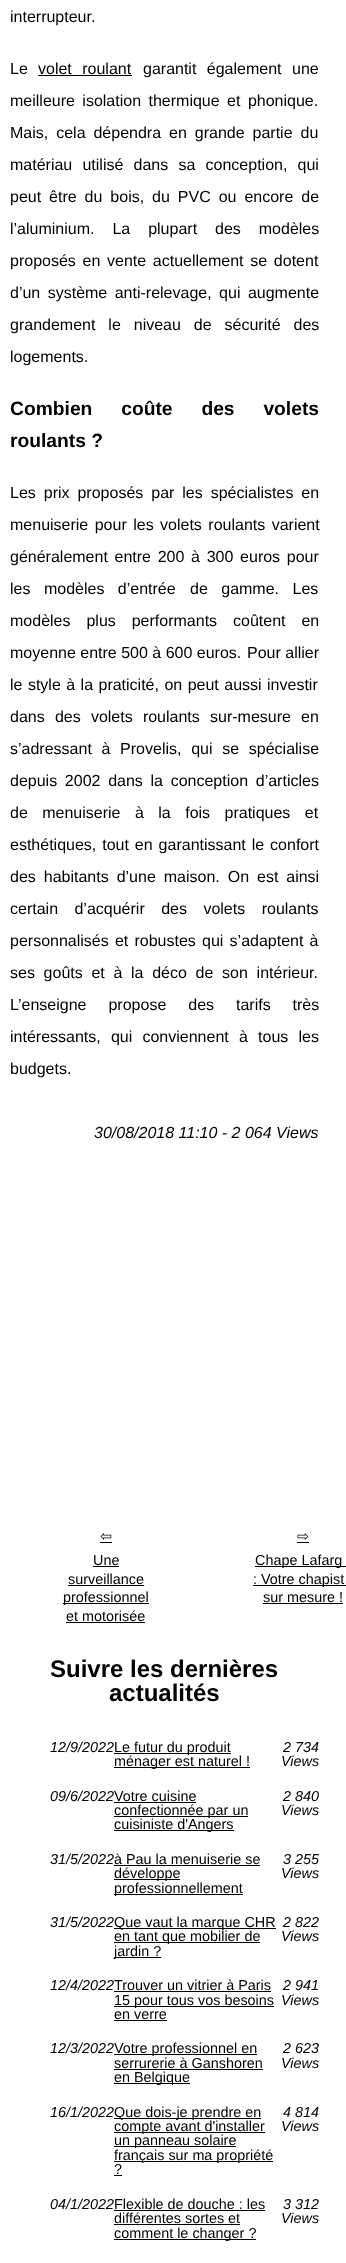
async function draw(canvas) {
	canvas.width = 346;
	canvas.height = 2263;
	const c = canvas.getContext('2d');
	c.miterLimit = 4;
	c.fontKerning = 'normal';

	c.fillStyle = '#fff';
	c.fillRect(0, 0, 346, 2263);
	c.font = '16px Liberation Sans';
	c.fillStyle = '#000';
	c.fillText('interrupteur.', 10, 22);
	c.fillText('Le', 10, 74);
	c.wordSpacing = '6px';
	c.fillText('volet roulant', 38, 74);
	c.fillRect(38, 75, 94, 1);
	c.fillText('garantit également une', 143, 74);
	c.wordSpacing = '3px';
	c.fillText('meilleure isolation thermique et phonique.', 10, 106);
	c.wordSpacing = '3.5px';
	c.fillText('Mais, cela dépendra en grande partie du', 10, 138);
	c.wordSpacing = '5.75px';
	c.fillText('matériau utilisé dans sa conception, qui', 10, 170);
	c.wordSpacing = '3.5px';
	c.fillText('peut être du bois, du PVC ou encore de', 10, 202);
	c.wordSpacing = '13.5px';
	c.fillText('l’aluminium. La plupart des modèles', 10, 234);
	c.wordSpacing = '2.25px';
	c.fillText('proposés en vente actuellement se dotent', 10, 266);
	c.wordSpacing = '3px';
	c.fillText('d’un système anti-relevage, qui augmente', 10, 298);
	c.wordSpacing = '8.5px';
	c.fillText('grandement le niveau de sécurité des', 10, 330);
	c.wordSpacing = '0px';
	c.fillText('logements.', 10, 362);
	c.wordSpacing = '23.5px';
	c.font = 'bold 19.25px Liberation Sans';
	c.fillText('Combien coûte des volets', 10, 415);
	c.wordSpacing = '0px';
	c.fillText('roulants ?', 10, 447);
	c.wordSpacing = '3.5px';
	c.font = '16px Liberation Sans';
	c.fillText('Les prix proposés par les spécialistes en', 10, 498);
	c.wordSpacing = '2px';
	c.fillText('menuiserie pour les volets roulants varient', 10, 530);
	c.wordSpacing = '2.25px';
	c.fillText('généralement entre 200 à 300 euros pour', 10, 562);
	c.wordSpacing = '9px';
	c.fillText('les modèles d’entrée', 10, 594);
	c.fillText('de gamme. Les', 190, 594);
	c.wordSpacing = '11.5px';
	c.fillText('modèles plus performants coûtent en', 10, 626);
	c.wordSpacing = '0px';
	c.fillText('moyenne entre 500 à 600 euros.', 10, 658);
	c.fillText('Pour allier', 247, 658);
	c.wordSpacing = '1px';
	c.fillText('le style à la praticité, on peut aussi investir', 10, 690);
	c.wordSpacing = '5.75px';
	c.fillText('dans des volets roulants sur-mesure en', 10, 722);
	c.wordSpacing = '5.25px';
	c.fillText('s’adressant à Provelis, qui se spécialise', 10, 754);
	c.wordSpacing = '3.25px';
	c.fillText('depuis 2002 dans la conception d’articles', 10, 786);
	c.wordSpacing = '10px';
	c.fillText('de menuiserie à la fois pratiques et', 10, 818);
	c.wordSpacing = '1.5px';
	c.fillText('esthétiques, tout en garantissant le confort', 10, 850);
	c.wordSpacing = '3.5px';
	c.fillText('des habitants d’une maison. On est ainsi', 10, 882);
	c.wordSpacing = '12px';
	c.fillText('certain d’acquérir des volets roulants', 10, 914);
	c.wordSpacing = '1.75px';
	c.fillText('personnalisés et robustes qui s’adaptent à', 10, 946);
	c.wordSpacing = '4.25px';
	c.fillText('ses goûts et à la déco de son intérieur.', 10, 978);
	c.wordSpacing = '17.5px';
	c.fillText('L’enseigne propose des tarifs très', 10, 1010);
	c.wordSpacing = '5.75px';
	c.fillText('intéressants, qui conviennent à tous les', 10, 1042);
	c.wordSpacing = '0px';
	c.fillText('budgets.', 10, 1074);
	c.font = 'italic 16px Liberation Sans';
	c.fillText('30/08/2018 11:10 - 2 064 Views', 94, 1138);
	c.fillRect(100, 1542, 12, 1);
	c.font = '14.4px DejaVu Sans';
	c.fillText('⇦', 100, 1541);
	c.font = '14.4px Liberation Sans';
	c.fillText('Une', 93, 1565);
	c.fillRect(93, 1566, 26, 1);
	c.fillText('surveillance', 68, 1584);
	c.fillRect(68, 1585, 76, 1);
	c.fillRect(63, 1603, 86, 1);
	c.fillText('professionnel', 63, 1602);
	c.fillText('et motorisée', 66, 1621);
	c.fillRect(66, 1622, 79, 1);
	c.fillRect(297, 1542, 12, 1);
	c.font = '14.4px DejaVu Sans';
	c.fillText('⇨', 297, 1541);
	c.fillRect(255, 1566, 91, 1);
	c.font = '14.4px Liberation Sans';
	c.fillText('Chape Lafarg', 255, 1565);
	c.fillRect(253, 1585, 93, 1);
	c.fillText(': Votre chapist', 253, 1584);
	c.fillText('sur mesure !', 263, 1602);
	c.fillRect(263, 1603, 80, 1);
	c.font = 'bold 24px Liberation Sans';
	c.fillText('Suivre les dernières', 50, 1677);
	c.fillText('actualités', 109, 1701);
	c.font = 'italic 14.4px Liberation Sans';
	c.fillText('12/9/2022', 50, 1752);
	c.fillRect(114, 1753, 117, 1);
	c.font = '14.4px Liberation Sans';
	c.fillText('Le futur du produit', 114, 1752);
	c.fillRect(114, 1767, 136, 1);
	c.fillText('ménager est naturel !', 114, 1766);
	c.font = 'italic 14.4px Liberation Sans';
	for (const [text, x, y] of [
		['2 734', 283, 1752],
		['Views', 281, 1766],
		['09/6/2022', 50, 1801],
	]) {
		c.fillText(text, x, y);
	}
	c.font = '14.4px Liberation Sans';
	c.fillText('Votre cuisine', 114, 1801);
	c.fillRect(114, 1802, 82, 1);
	c.fillRect(114, 1816, 134, 1);
	c.fillText('confectionnée par un', 114, 1815);
	c.fillRect(114, 1830, 120, 1);
	c.fillText('cuisiniste d\'Angers', 114, 1829);
	c.font = 'italic 14.4px Liberation Sans';
	for (const [text, x, y] of [
		['2 840', 283, 1801],
		['Views', 281, 1815],
		['31/5/2022', 50, 1864],
	]) {
		c.fillText(text, x, y);
	}
	c.font = '14.4px Liberation Sans';
	c.fillText('à Pau la menuiserie se', 114, 1864);
	c.fillRect(114, 1865, 146, 1);
	c.fillRect(114, 1879, 66, 1);
	c.fillText('développe', 114, 1878);
	c.fillRect(114, 1894, 129, 1);
	c.fillText('professionnellement', 114, 1893);
	c.font = 'italic 14.4px Liberation Sans';
	for (const [text, x, y] of [
		['3 255', 283, 1864],
		['Views', 281, 1878],
		['31/5/2022', 50, 1927],
	]) {
		c.fillText(text, x, y);
	}
	c.fillRect(114, 1928, 162, 1);
	c.font = '14.4px Liberation Sans';
	c.fillText('Que vaut la marque CHR', 114, 1927);
	c.fillRect(114, 1942, 146, 1);
	c.fillText('en tant que mobilier de', 114, 1941);
	c.fillRect(114, 1957, 47, 1);
	c.fillText('jardin ?', 114, 1956);
	c.font = 'italic 14.4px Liberation Sans';
	for (const [text, x, y] of [
		['2 822', 283, 1927],
		['Views', 281, 1941],
		['12/4/2022', 50, 1990],
	]) {
		c.fillText(text, x, y);
	}
	c.font = '14.4px Liberation Sans';
	c.fillText('Trouver un vitrier à Paris', 114, 1990);
	c.fillRect(114, 1991, 157, 1);
	c.fillRect(114, 2006, 160, 1);
	c.fillText('15 pour tous vos besoins', 114, 2005);
	c.fillText('en verre', 114, 2019);
	c.fillRect(114, 2020, 53, 1);
	c.font = 'italic 14.4px Liberation Sans';
	for (const [text, x, y] of [
		['2 941', 283, 1990],
		['Views', 281, 2005],
		['12/3/2022', 50, 2053],
	]) {
		c.fillText(text, x, y);
	}
	c.fillRect(114, 2054, 143, 1);
	c.font = '14.4px Liberation Sans';
	c.fillText('Votre professionnel en', 114, 2053);
	c.fillText('serrurerie à Ganshoren', 114, 2068);
	c.fillRect(114, 2069, 149, 1);
	c.fillRect(114, 2083, 76, 1);
	c.fillText('en Belgique', 114, 2082);
	c.font = 'italic 14.4px Liberation Sans';
	for (const [text, x, y] of [
		['2 623', 283, 2053],
		['Views', 281, 2068],
		['16/1/2022', 50, 2117],
	]) {
		c.fillText(text, x, y);
	}
	c.fillRect(114, 2118, 147, 1);
	c.font = '14.4px Liberation Sans';
	c.fillText('Que dois-je prendre en', 114, 2117);
	c.fillRect(114, 2132, 151, 1);
	c.fillText('compte avant d\'installer', 114, 2131);
	c.fillRect(114, 2146, 122, 1);
	c.fillText('un panneau solaire', 114, 2145);
	c.fillRect(114, 2161, 159, 1);
	c.fillText('français sur ma propriété', 114, 2160);
	c.fillText('?', 114, 2174);
	c.fillRect(114, 2175, 8, 1);
	c.font = 'italic 14.4px Liberation Sans';
	for (const [text, x, y] of [
		['4 814', 283, 2117],
		['Views', 281, 2131],
		['04/1/2022', 50, 2209],
	]) {
		c.fillText(text, x, y);
	}
	c.font = '14.4px Liberation Sans';
	c.fillText('Flexible de douche : les', 114, 2209);
	c.fillRect(114, 2210, 151, 1);
	c.fillText('différentes sortes et', 114, 2223);
	c.fillRect(114, 2224, 126, 1);
	c.fillRect(114, 2239, 142, 1);
	c.fillText('comment le changer ?', 114, 2238);
	c.font = 'italic 14.4px Liberation Sans';
	c.fillText('3 312', 283, 2209);
	c.fillText('Views', 281, 2223);
}

draw(document.querySelector('canvas'));
